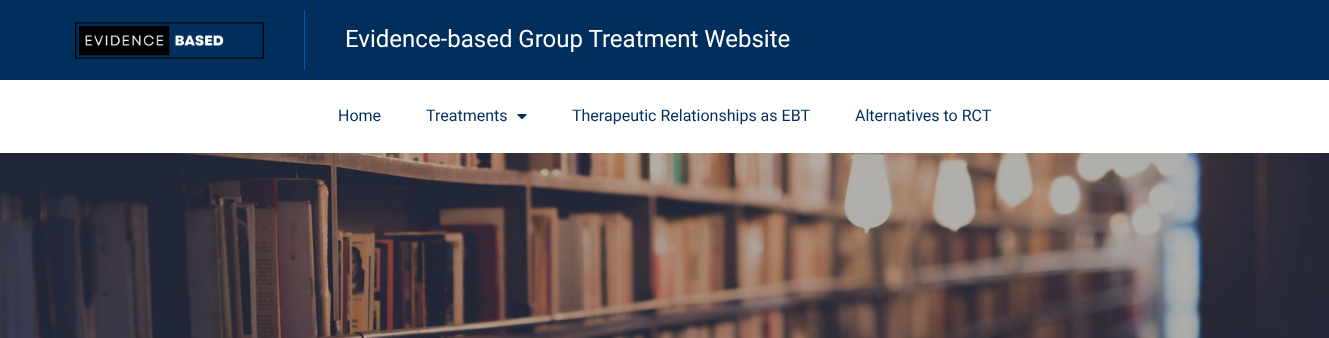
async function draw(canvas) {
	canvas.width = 1329;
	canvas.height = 338;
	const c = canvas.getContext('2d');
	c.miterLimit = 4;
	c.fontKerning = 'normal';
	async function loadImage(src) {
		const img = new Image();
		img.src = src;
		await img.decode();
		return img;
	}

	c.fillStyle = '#fff';
	c.fillRect(0, 0, 1329, 338);
	c.fillStyle = '#002e5d';
	c.fillRect(0, 0, 1329, 80);
	c.fillStyle = '#0057b8';
	c.fillRect(304, 10, 1, 60);
	c.drawImage(await loadImage('img1.png'), 75, 22, 189, 37);
	c.font = '24px Roboto';
	c.fillStyle = '#fff';
	c.fillText('Evidence-based Group Treatment Website', 345, 47);
	c.font = '16px Roboto';
	c.fillStyle = '#002e5d';
	c.fillText('Home', 338, 121);
	c.fillText('Treatments', 426, 121);
	c.drawImage(await loadImage('img2.png'), 517, 114, 10, 6);
	c.fillText('Therapeutic Relationships as EBT', 572, 121);
	c.fillText('Alternatives to RCT', 855, 121);
	c.drawImage(await loadImage('img3.png'), 0, 153, 1329, 185);
}

draw(document.querySelector('canvas'));
